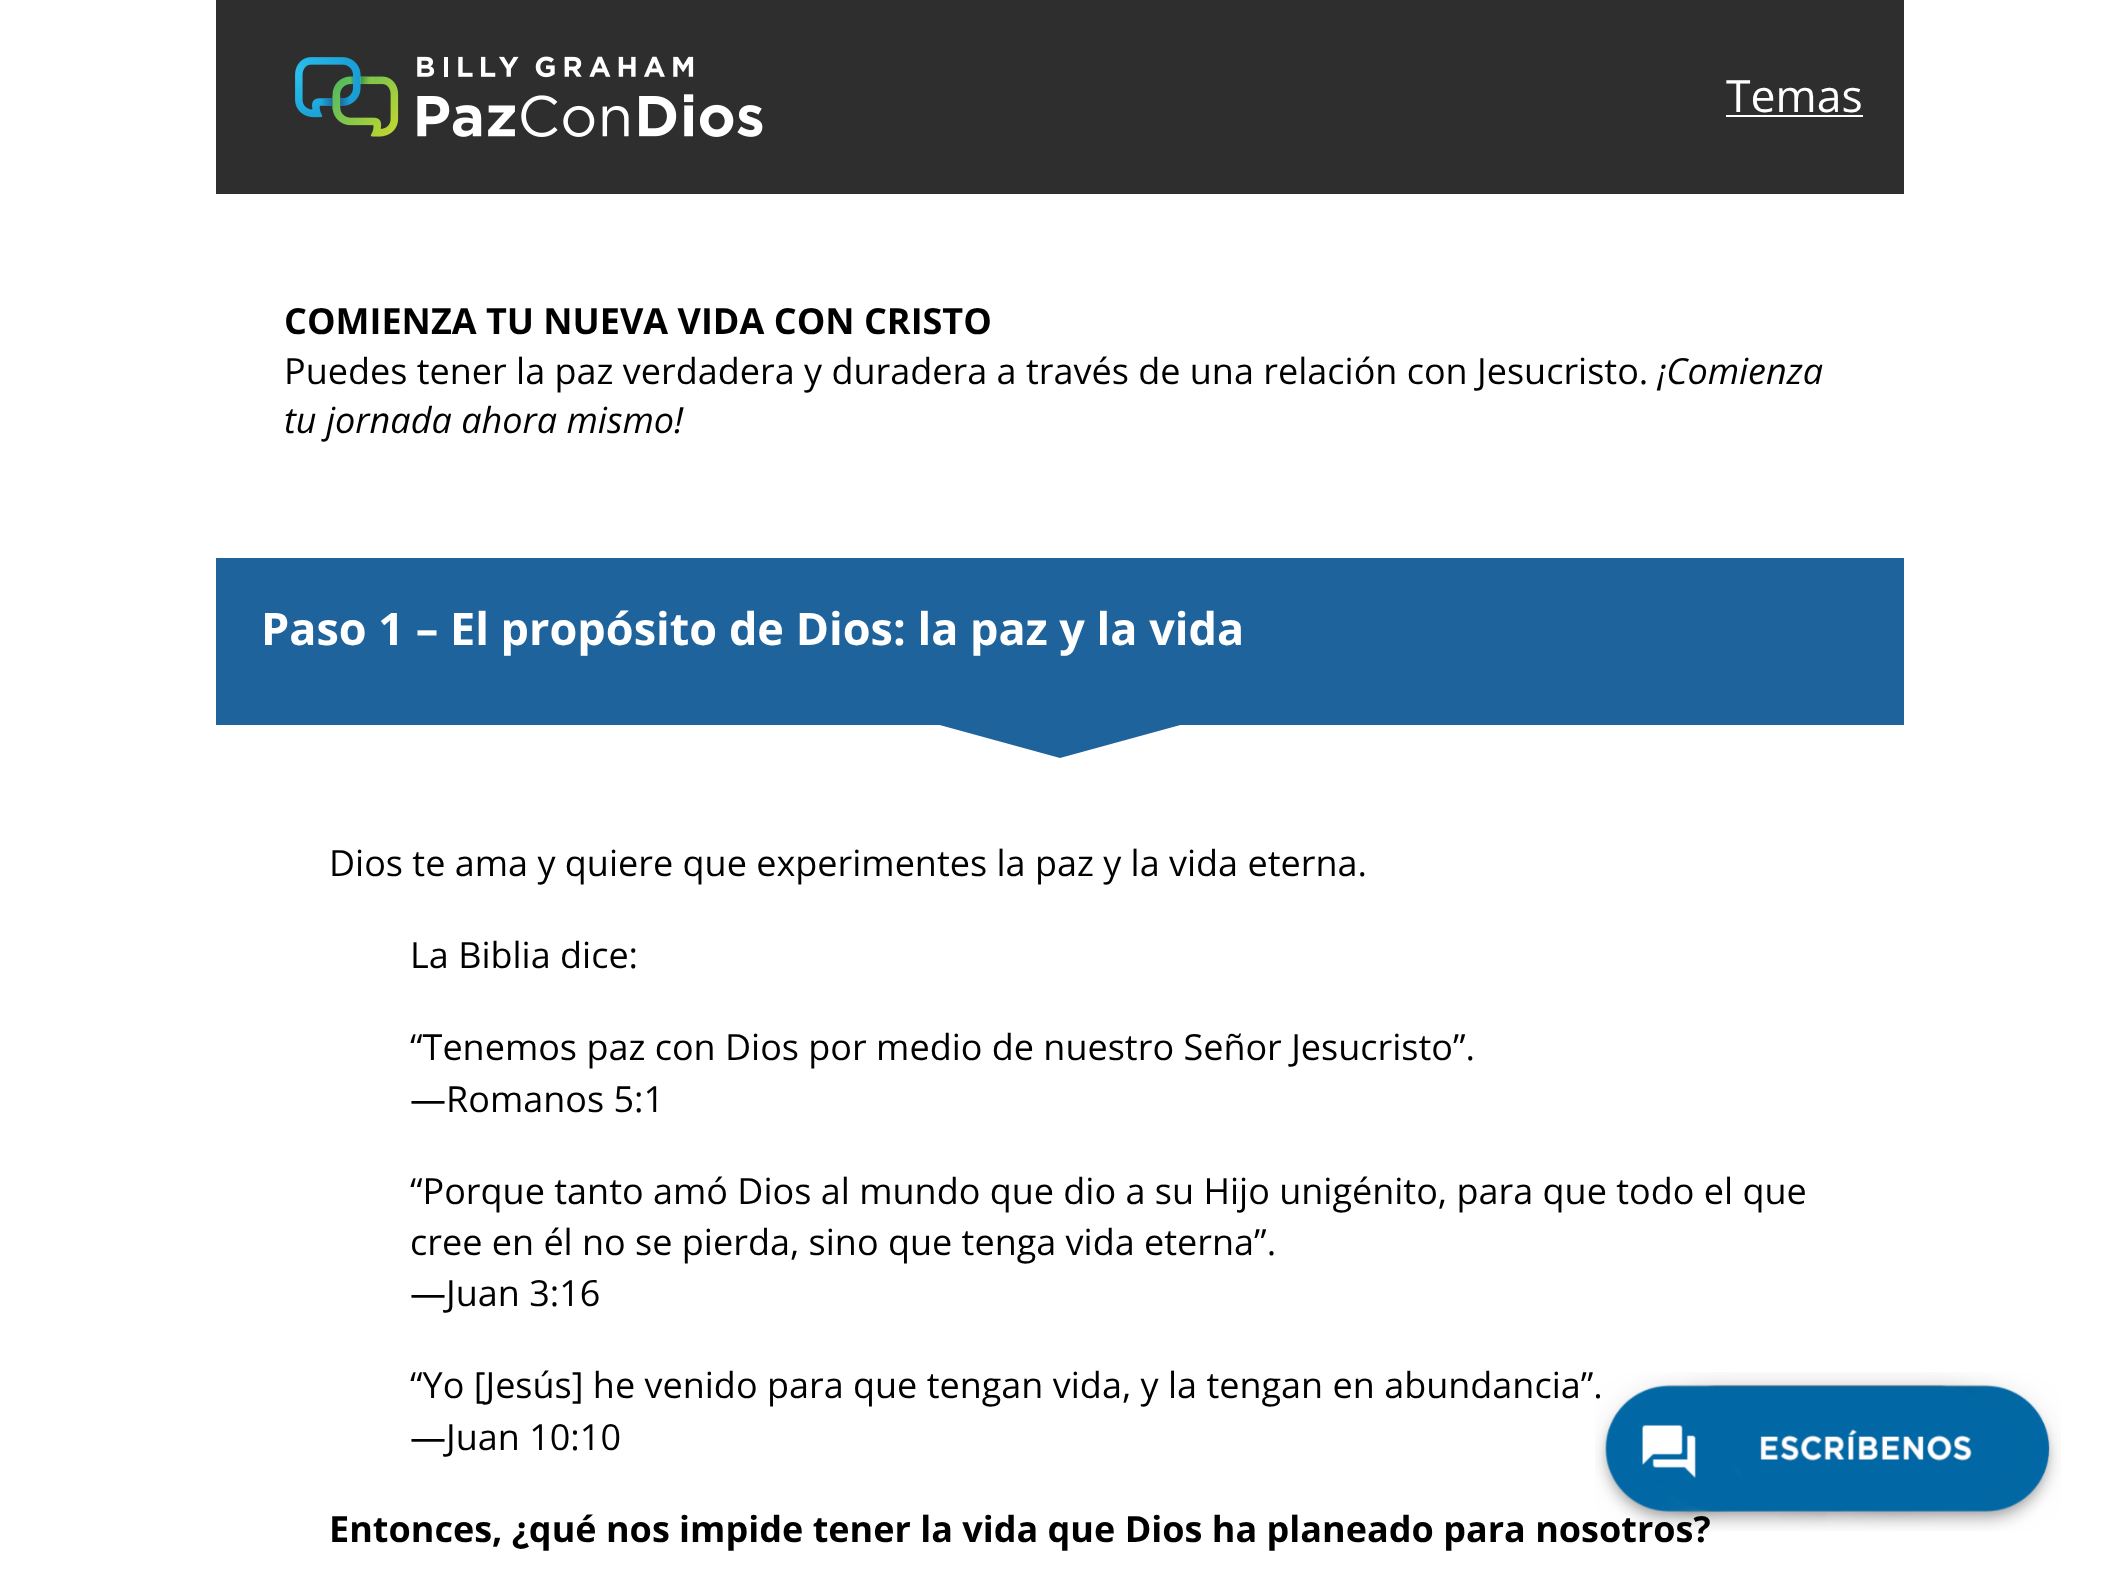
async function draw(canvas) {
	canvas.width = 2118;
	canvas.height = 1575;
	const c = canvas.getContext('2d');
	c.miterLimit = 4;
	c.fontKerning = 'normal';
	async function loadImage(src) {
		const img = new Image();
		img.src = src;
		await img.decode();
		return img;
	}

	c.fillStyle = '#fff';
	c.fillRect(0, 0, 2118, 1575);
	c.fillStyle = '#2e2e2e';
	c.fillRect(216, 0, 1688, 194);
	c.drawImage(await loadImage('img1.png'), 295, 56, 468, 81);
	c.font = '44.5px Open Sans';
	c.fillStyle = '#fff';
	c.fillText('Temas', 1726, 112);
	c.fillRect(1726, 115, 137, 2);
	c.font = 'bold 36px Open Sans';
	c.fillStyle = '#000';
	c.fillText('COMIENZA TU NUEVA VIDA CON CRISTO', 284, 334);
	c.font = '36px Open Sans';
	c.fillText('Puedes tener la paz verdadera y duradera a través de una relación con Jesucristo.', 284, 384);
	c.font = 'italic 36px Open Sans';
	c.fillText('¡Comienza', 1657, 384);
	c.fillText('tu jornada ahora mismo!', 284, 433);
	c.fillStyle = '#1e639b';
	c.beginPath();
	c.moveTo(936, 724);
	c.lineTo(1184, 724);
	c.lineTo(1060, 758);
	c.closePath();
	c.fill();
	c.fillRect(216, 558, 1688, 167);
	c.font = 'bold 45px Open Sans';
	c.fillStyle = '#fff';
	c.fillText('Paso 1 – El propósito de Dios: la paz y la vida', 261, 645);
	c.font = '36px Open Sans';
	c.fillStyle = '#000';
	for (const [text, x, y] of [
		['Dios te ama y quiere que experimentes la paz y la vida eterna.', 329, 876],
		['La Biblia dice:', 410, 968],
		['“Tenemos paz con Dios por medio de nuestro Señor Jesucristo”.', 410, 1060],
		['—Romanos 5:1', 410, 1112],
		['“Porque tanto amó Dios al mundo que dio a su Hijo unigénito, para que todo el que', 410, 1204],
		['cree en él no se pierda, sino que tenga vida eterna”.', 410, 1255],
		['—Juan 3:16', 410, 1306],
		['“Yo [Jesús] he venido para que tengan vida, y la tengan en abundancia”.', 410, 1398],
		['—Juan 10:10', 410, 1450],
	]) {
		c.fillText(text, x, y);
	}
	c.font = 'bold 36px Open Sans';
	c.fillText('Entonces, ¿qué nos impide tener la vida que Dios ha planeado para nosotros?', 329, 1542);
	c.drawImage(await loadImage('img2.png'), 1595, 1372, 466, 159);
}

draw(document.querySelector('canvas'));
